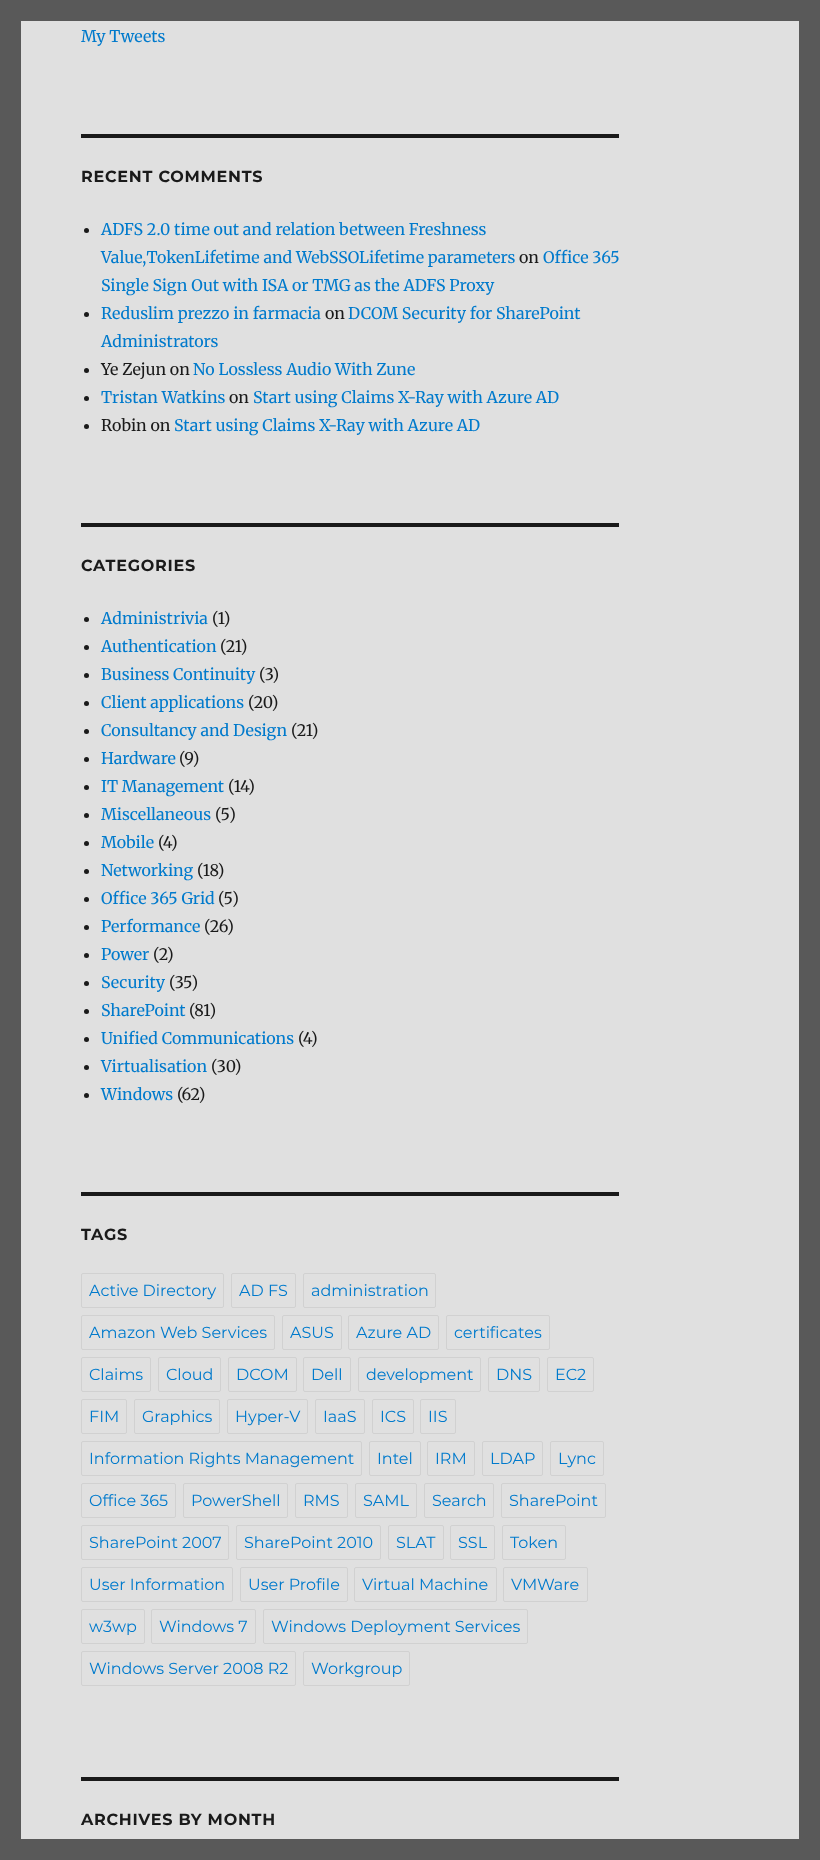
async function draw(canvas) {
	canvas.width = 820;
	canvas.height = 1860;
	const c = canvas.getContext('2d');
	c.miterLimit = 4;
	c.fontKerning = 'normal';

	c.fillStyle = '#595959';
	c.fillRect(0, 0, 820, 1860);
	c.fillStyle = '#e0e0e0';
	c.fillRect(21, 21, 778, 1818);
	c.font = '16px Merriweather';
	c.fillStyle = '#007acc';
	c.fillText('My Tweets', 81, 42);
	c.fillStyle = '#1a1a1a';
	c.fillRect(81, 134, 538, 4);
	c.letterSpacing = '0.75px';
	c.font = 'bold 16px Montserrat';
	c.fillText('RECENT COMMENTS', 81, 182);
	c.beginPath();
	c.arc(86.5, 230.5, 2.5, 0, 2 * Math.PI);
	c.fill();
	c.letterSpacing = '0px';
	c.font = '16px Merriweather';
	c.fillStyle = '#007acc';
	c.fillText('ADFS 2.0 time out and relation between Freshness', 101, 235);
	c.fillText('Value,TokenLifetime and WebSSOLifetime parameters', 101, 263);
	c.fillStyle = '#1a1a1a';
	c.fillText('on', 519, 263);
	c.fillStyle = '#007acc';
	c.fillText('Office 365', 543, 263);
	c.fillText('Single Sign Out with ISA or TMG as the ADFS Proxy', 101, 291);
	c.fillStyle = '#1a1a1a';
	c.beginPath();
	c.arc(86.5, 314.5, 2.5, 0, 2 * Math.PI);
	c.fill();
	c.fillStyle = '#007acc';
	c.fillText('Reduslim prezzo in farmacia', 101, 319);
	c.fillStyle = '#1a1a1a';
	c.fillText('on', 325, 319);
	c.fillStyle = '#007acc';
	c.fillText('DCOM Security for SharePoint', 348, 319);
	c.fillText('Administrators', 101, 347);
	c.fillStyle = '#1a1a1a';
	c.beginPath();
	c.arc(86.5, 370.5, 2.5, 0, 2 * Math.PI);
	c.fill();
	c.fillText('Ye Zejun on', 101, 375);
	c.fillStyle = '#007acc';
	c.fillText('No Lossless Audio With Zune', 193, 375);
	c.fillStyle = '#1a1a1a';
	c.beginPath();
	c.arc(86.5, 398.5, 2.5, 0, 2 * Math.PI);
	c.fill();
	c.fillStyle = '#007acc';
	c.fillText('Tristan Watkins', 101, 403);
	c.fillStyle = '#1a1a1a';
	c.fillText('on', 229, 403);
	c.fillStyle = '#007acc';
	c.fillText('Start using Claims X-Ray with Azure AD', 253, 403);
	c.fillStyle = '#1a1a1a';
	c.beginPath();
	c.arc(86.5, 426.5, 2.5, 0, 2 * Math.PI);
	c.fill();
	c.fillText('Robin on', 101, 431);
	c.fillStyle = '#007acc';
	c.fillText('Start using Claims X-Ray with Azure AD', 174, 431);
	c.fillStyle = '#1a1a1a';
	c.fillRect(81, 523, 538, 4);
	c.letterSpacing = '0.75px';
	c.font = 'bold 16px Montserrat';
	c.fillText('CATEGORIES', 81, 571);
	c.beginPath();
	c.arc(86.5, 619.5, 2.5, 0, 2 * Math.PI);
	c.fill();
	c.letterSpacing = '0px';
	c.font = '16px Merriweather';
	c.fillStyle = '#007acc';
	c.fillText('Administrivia', 101, 624);
	c.fillStyle = '#1a1a1a';
	c.fillText('(1)', 212, 624);
	c.beginPath();
	c.arc(86.5, 647.5, 2.5, 0, 2 * Math.PI);
	c.fill();
	c.fillStyle = '#007acc';
	c.fillText('Authentication', 101, 652);
	c.fillStyle = '#1a1a1a';
	c.fillText('(21)', 220, 652);
	c.beginPath();
	c.arc(86.5, 675.5, 2.5, 0, 2 * Math.PI);
	c.fill();
	c.fillStyle = '#007acc';
	c.fillText('Business Continuity', 101, 680);
	c.fillStyle = '#1a1a1a';
	c.fillText('(3)', 259, 680);
	c.beginPath();
	c.arc(86.5, 703.5, 2.5, 0, 2 * Math.PI);
	c.fill();
	c.fillStyle = '#007acc';
	c.fillText('Client applications', 101, 708);
	c.fillStyle = '#1a1a1a';
	c.fillText('(20)', 248, 708);
	c.beginPath();
	c.arc(86.5, 731.5, 2.5, 0, 2 * Math.PI);
	c.fill();
	c.fillStyle = '#007acc';
	c.fillText('Consultancy and Design', 101, 736);
	c.fillStyle = '#1a1a1a';
	c.fillText('(21)', 291, 736);
	c.beginPath();
	c.arc(86.5, 759.5, 2.5, 0, 2 * Math.PI);
	c.fill();
	c.fillStyle = '#007acc';
	c.fillText('Hardware', 101, 764);
	c.fillStyle = '#1a1a1a';
	c.fillText('(9)', 179, 764);
	c.beginPath();
	c.arc(86.5, 787.5, 2.5, 0, 2 * Math.PI);
	c.fill();
	c.fillStyle = '#007acc';
	c.fillText('IT Management', 101, 792);
	c.fillStyle = '#1a1a1a';
	c.fillText('(14)', 228, 792);
	c.beginPath();
	c.arc(86.5, 815.5, 2.5, 0, 2 * Math.PI);
	c.fill();
	c.fillStyle = '#007acc';
	c.fillText('Miscellaneous', 101, 820);
	c.fillStyle = '#1a1a1a';
	c.fillText('(5)', 215, 820);
	c.beginPath();
	c.arc(86.5, 843.5, 2.5, 0, 2 * Math.PI);
	c.fill();
	c.fillStyle = '#007acc';
	c.fillText('Mobile', 101, 848);
	c.fillStyle = '#1a1a1a';
	c.fillText('(4)', 158, 848);
	c.beginPath();
	c.arc(86.5, 871.5, 2.5, 0, 2 * Math.PI);
	c.fill();
	c.fillStyle = '#007acc';
	c.fillText('Networking', 101, 876);
	c.fillStyle = '#1a1a1a';
	c.fillText('(18)', 197, 876);
	c.beginPath();
	c.arc(86.5, 899.5, 2.5, 0, 2 * Math.PI);
	c.fill();
	c.fillStyle = '#007acc';
	c.fillText('Office 365 Grid', 101, 904);
	c.fillStyle = '#1a1a1a';
	c.fillText('(5)', 218, 904);
	c.beginPath();
	c.arc(86.5, 927.5, 2.5, 0, 2 * Math.PI);
	c.fill();
	c.fillStyle = '#007acc';
	c.fillText('Performance', 101, 932);
	c.fillStyle = '#1a1a1a';
	c.fillText('(26)', 204, 932);
	c.beginPath();
	c.arc(86.5, 955.5, 2.5, 0, 2 * Math.PI);
	c.fill();
	c.fillStyle = '#007acc';
	c.fillText('Power', 101, 960);
	c.fillStyle = '#1a1a1a';
	c.fillText('(2)', 153, 960);
	c.beginPath();
	c.arc(86.5, 983.5, 2.5, 0, 2 * Math.PI);
	c.fill();
	c.fillStyle = '#007acc';
	c.fillText('Security', 101, 988);
	c.fillStyle = '#1a1a1a';
	c.fillText('(35)', 169, 988);
	c.beginPath();
	c.arc(86.5, 1011.5, 2.5, 0, 2 * Math.PI);
	c.fill();
	c.fillStyle = '#007acc';
	c.fillText('SharePoint', 101, 1016);
	c.fillStyle = '#1a1a1a';
	c.fillText('(81)', 189, 1016);
	c.beginPath();
	c.arc(86.5, 1039.5, 2.5, 0, 2 * Math.PI);
	c.fill();
	c.fillStyle = '#007acc';
	c.fillText('Unified Communications', 101, 1044);
	c.fillStyle = '#1a1a1a';
	c.fillText('(4)', 298, 1044);
	c.beginPath();
	c.arc(86.5, 1067.5, 2.5, 0, 2 * Math.PI);
	c.fill();
	c.fillStyle = '#007acc';
	c.fillText('Virtualisation', 101, 1072);
	c.fillStyle = '#1a1a1a';
	c.fillText('(30)', 211, 1072);
	c.beginPath();
	c.arc(86.5, 1095.5, 2.5, 0, 2 * Math.PI);
	c.fill();
	c.fillStyle = '#007acc';
	c.fillText('Windows', 101, 1100);
	c.fillStyle = '#1a1a1a';
	c.fillText('(62)', 177, 1100);
	c.fillRect(81, 1192, 538, 4);
	c.letterSpacing = '0.75px';
	c.font = 'bold 16px Montserrat';
	c.fillText('TAGS', 81, 1240);
	c.beginPath();
	c.roundRect(81.5, 1273.5, 142, 34, 1.5);
	c.strokeStyle = '#d1d1d1';
	c.stroke();
	c.letterSpacing = '0px';
	c.font = '16px Montserrat';
	c.fillStyle = '#007acc';
	c.fillText('Active Directory', 89, 1296);
	c.beginPath();
	c.roundRect(231.5, 1273.5, 64, 34, 1.5);
	c.stroke();
	c.fillText('AD FS', 239, 1296);
	c.beginPath();
	c.roundRect(303.5, 1273.5, 132, 34, 1.5);
	c.stroke();
	c.fillText('administration', 311, 1296);
	c.beginPath();
	c.roundRect(81.5, 1315.5, 193, 34, 1.5);
	c.stroke();
	c.fillText('Amazon Web Services', 89, 1338);
	c.beginPath();
	c.roundRect(282.5, 1315.5, 59, 34, 1.5);
	c.stroke();
	c.fillText('ASUS', 290, 1338);
	c.beginPath();
	c.roundRect(348.5, 1315.5, 90, 34, 1.5);
	c.stroke();
	c.fillText('Azure AD', 356, 1338);
	c.beginPath();
	c.roundRect(446.5, 1315.5, 103, 34, 1.5);
	c.stroke();
	c.fillText('certificates', 454, 1338);
	c.beginPath();
	c.roundRect(81.5, 1357.5, 69, 34, 1.5);
	c.stroke();
	c.fillText('Claims', 89, 1380);
	c.beginPath();
	c.roundRect(158.5, 1357.5, 62, 34, 1.5);
	c.stroke();
	c.fillText('Cloud', 166, 1380);
	c.beginPath();
	c.roundRect(228.5, 1357.5, 68, 34, 1.5);
	c.stroke();
	c.fillText('DCOM', 236, 1380);
	c.beginPath();
	c.roundRect(303.5, 1357.5, 47, 34, 1.5);
	c.stroke();
	c.fillText('Dell', 311, 1380);
	c.beginPath();
	c.roundRect(358.5, 1357.5, 122, 34, 1.5);
	c.stroke();
	c.fillText('development', 366, 1380);
	c.beginPath();
	c.roundRect(488.5, 1357.5, 51, 34, 1.5);
	c.stroke();
	c.fillText('DNS', 496, 1380);
	c.beginPath();
	c.roundRect(547.5, 1357.5, 46, 34, 1.5);
	c.stroke();
	c.fillText('EC2', 555, 1380);
	c.beginPath();
	c.roundRect(81.5, 1399.5, 45, 34, 1.5);
	c.stroke();
	c.fillText('FIM', 89, 1422);
	c.beginPath();
	c.roundRect(134.5, 1399.5, 85, 34, 1.5);
	c.stroke();
	c.fillText('Graphics', 142, 1422);
	c.beginPath();
	c.roundRect(227.5, 1399.5, 80, 34, 1.5);
	c.stroke();
	c.fillText('Hyper-V', 235, 1422);
	c.beginPath();
	c.roundRect(315.5, 1399.5, 49, 34, 1.5);
	c.stroke();
	c.fillText('IaaS', 323, 1422);
	c.beginPath();
	c.roundRect(372.5, 1399.5, 41, 34, 1.5);
	c.stroke();
	c.fillText('ICS', 380, 1422);
	c.beginPath();
	c.roundRect(420.5, 1399.5, 35, 34, 1.5);
	c.stroke();
	c.fillText('IIS', 428, 1422);
	c.beginPath();
	c.roundRect(81.5, 1441.5, 280, 34, 1.5);
	c.stroke();
	c.fillText('Information Rights Management', 89, 1464);
	c.beginPath();
	c.roundRect(369.5, 1441.5, 51, 34, 1.5);
	c.stroke();
	c.fillText('Intel', 377, 1464);
	c.beginPath();
	c.roundRect(427.5, 1441.5, 47, 34, 1.5);
	c.stroke();
	c.fillText('IRM', 435, 1464);
	c.beginPath();
	c.roundRect(482.5, 1441.5, 60, 34, 1.5);
	c.stroke();
	c.fillText('LDAP', 490, 1464);
	c.beginPath();
	c.roundRect(550.5, 1441.5, 53, 34, 1.5);
	c.stroke();
	c.fillText('Lync', 558, 1464);
	c.beginPath();
	c.roundRect(81.5, 1483.5, 94, 34, 1.5);
	c.stroke();
	c.fillText('Office 365', 89, 1506);
	c.beginPath();
	c.roundRect(183.5, 1483.5, 104, 34, 1.5);
	c.stroke();
	c.fillText('PowerShell', 191, 1506);
	c.beginPath();
	c.roundRect(295.5, 1483.5, 52, 34, 1.5);
	c.stroke();
	c.fillText('RMS', 303, 1506);
	c.beginPath();
	c.roundRect(355.5, 1483.5, 61, 34, 1.5);
	c.stroke();
	c.fillText('SAML', 363, 1506);
	c.beginPath();
	c.roundRect(424.5, 1483.5, 69, 34, 1.5);
	c.stroke();
	c.fillText('Search', 432, 1506);
	c.beginPath();
	c.roundRect(501.5, 1483.5, 104, 34, 1.5);
	c.stroke();
	c.fillText('SharePoint', 509, 1506);
	c.beginPath();
	c.roundRect(81.5, 1525.5, 147, 34, 1.5);
	c.stroke();
	c.fillText('SharePoint 2007', 89, 1548);
	c.beginPath();
	c.roundRect(236.5, 1525.5, 144, 34, 1.5);
	c.stroke();
	c.fillText('SharePoint 2010', 244, 1548);
	c.beginPath();
	c.roundRect(388.5, 1525.5, 55, 34, 1.5);
	c.stroke();
	c.fillText('SLAT', 396, 1548);
	c.beginPath();
	c.roundRect(450.5, 1525.5, 44, 34, 1.5);
	c.stroke();
	c.fillText('SSL', 458, 1548);
	c.beginPath();
	c.roundRect(502.5, 1525.5, 63, 34, 1.5);
	c.stroke();
	c.fillText('Token', 510, 1548);
	c.beginPath();
	c.roundRect(81.5, 1567.5, 151, 34, 1.5);
	c.stroke();
	c.fillText('User Information', 89, 1590);
	c.beginPath();
	c.roundRect(240.5, 1567.5, 107, 34, 1.5);
	c.stroke();
	c.fillText('User Profile', 248, 1590);
	c.beginPath();
	c.roundRect(354.5, 1567.5, 142, 34, 1.5);
	c.stroke();
	c.fillText('Virtual Machine', 362, 1590);
	c.beginPath();
	c.roundRect(503.5, 1567.5, 84, 34, 1.5);
	c.stroke();
	c.fillText('VMWare', 511, 1590);
	c.beginPath();
	c.roundRect(81.5, 1609.5, 63, 34, 1.5);
	c.stroke();
	c.fillText('w3wp', 89, 1632);
	c.beginPath();
	c.roundRect(151.5, 1609.5, 104, 34, 1.5);
	c.stroke();
	c.fillText('Windows 7', 159, 1632);
	c.beginPath();
	c.roundRect(263.5, 1609.5, 264, 34, 1.5);
	c.stroke();
	c.fillText('Windows Deployment Services', 271, 1632);
	c.beginPath();
	c.roundRect(81.5, 1651.5, 214, 34, 1.5);
	c.stroke();
	c.fillText('Windows Server 2008 R2', 89, 1674);
	c.beginPath();
	c.roundRect(303.5, 1651.5, 106, 34, 1.5);
	c.stroke();
	c.fillText('Workgroup', 311, 1674);
	c.fillStyle = '#1a1a1a';
	c.fillRect(81, 1777, 538, 4);
	c.letterSpacing = '0.75px';
	c.font = 'bold 16px Montserrat';
	c.fillText('ARCHIVES BY MONTH', 81, 1825);
}

draw(document.querySelector('canvas'));
